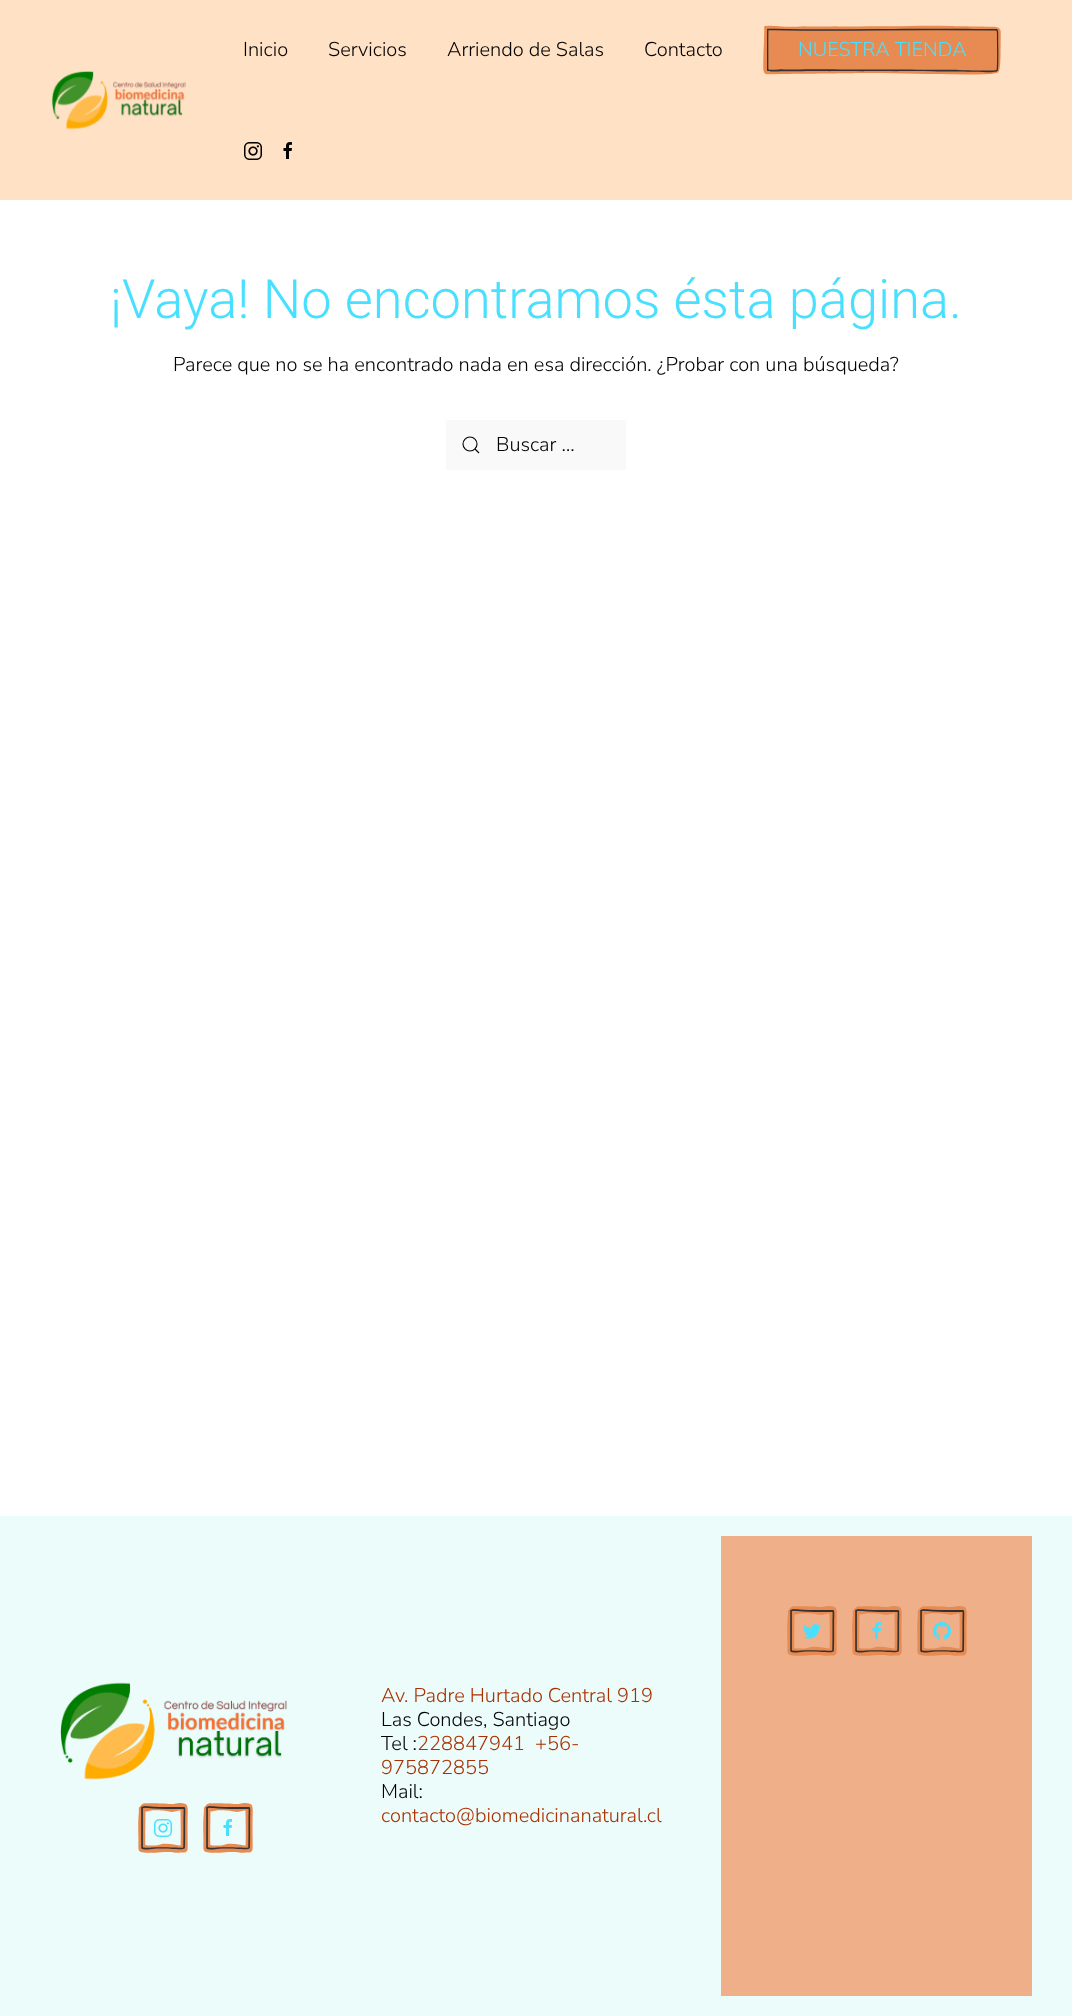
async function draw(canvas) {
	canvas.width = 1072;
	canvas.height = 2016;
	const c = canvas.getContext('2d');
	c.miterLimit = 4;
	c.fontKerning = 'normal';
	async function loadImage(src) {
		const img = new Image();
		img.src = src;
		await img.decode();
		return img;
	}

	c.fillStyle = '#fff';
	c.fillRect(0, 0, 1072, 2016);
	c.fillStyle = '#ffe2c5';
	c.fillRect(0, 0, 1072, 200);
	c.font = '200 20px Nunito Sans';
	c.fillStyle = '#000';
	for (const [text, x, y] of [
		['Inicio', 243, 56],
		['Servicios', 328, 56],
		['Arriendo de Salas', 447, 56],
		['Contacto', 644, 56],
	]) {
		c.fillText(text, x, y);
	}
	c.drawImage(await loadImage('img1.png'), 763, 25, 238, 50);
	c.fillStyle = '#49e0ff';
	c.fillText('NUESTRA TIENDA', 798, 56);
	c.drawImage(await loadImage('img2.png'), 244, 142, 18, 18);
	c.drawImage(await loadImage('img3.png'), 283, 142, 9, 17);
	c.drawImage(await loadImage('img4.png'), 51, 71, 135, 59);
	c.font = '300 54.25px Roboto';
	c.fillText('¡Vaya! No encontramos ésta página.', 110, 318);
	c.font = '200 20px Nunito Sans';
	c.fillStyle = '#000';
	c.fillText('Parece que no se ha encontrado nada en esa dirección. ¿Probar con una búsqueda?', 173, 371);
	c.fillStyle = '#f9f9f9';
	c.fillRect(446, 420, 180, 50);
	c.beginPath();
	c.arc(470, 444, 7, 0, 2 * Math.PI);
	c.strokeStyle = '#000';
	c.lineWidth = 1.1;
	c.stroke();
	c.beginPath();
	c.moveTo(475, 449);
	c.lineTo(479, 453);
	c.closePath();
	c.stroke();
	c.fillStyle = '#000';
	c.fillText('Buscar …', 496, 451);
	c.fillStyle = '#ecfcfa';
	c.fillRect(0, 1516, 1072, 500);
	c.drawImage(await loadImage('img5.png'), 60, 1682, 227, 98);
	c.drawImage(await loadImage('img6.png'), 138, 1803, 50, 50);
	c.drawImage(await loadImage('img7.png'), 154, 1819, 18, 18);
	c.drawImage(await loadImage('img6.png'), 203, 1803, 50, 50);
	c.drawImage(await loadImage('img8.png'), 223, 1819, 9, 17);
	c.fillStyle = '#a93000';
	c.fillText('Av. Padre Hurtado Central 919', 381, 1702);
	c.fillStyle = '#000';
	c.fillText('Las Condes, Santiago', 381, 1726);
	c.fillText('Tel :', 381, 1750);
	c.fillStyle = '#a93000';
	for (const [text, x, y] of [
		['228847941', 417, 1750],
		['+56-', 535, 1750],
		['975872855', 381, 1774],
	]) {
		c.fillText(text, x, y);
	}
	c.fillStyle = '#000';
	c.fillText('Mail:', 381, 1798);
	c.fillStyle = '#a93000';
	c.fillText('contacto@biomedicinanatural.cl', 381, 1822);
	c.fillStyle = '#efaf88';
	c.fillRect(721, 1536, 311, 460);
	c.drawImage(await loadImage('img9.png'), 787, 1606, 50, 50);
	c.drawImage(await loadImage('img10.png'), 803, 1624, 18, 15);
	c.drawImage(await loadImage('img9.png'), 852, 1606, 50, 50);
	c.drawImage(await loadImage('img11.png'), 872, 1622, 9, 17);
	c.drawImage(await loadImage('img9.png'), 917, 1606, 50, 50);
	c.drawImage(await loadImage('img12.png'), 933, 1622, 18, 18);
}

draw(document.querySelector('canvas'));
